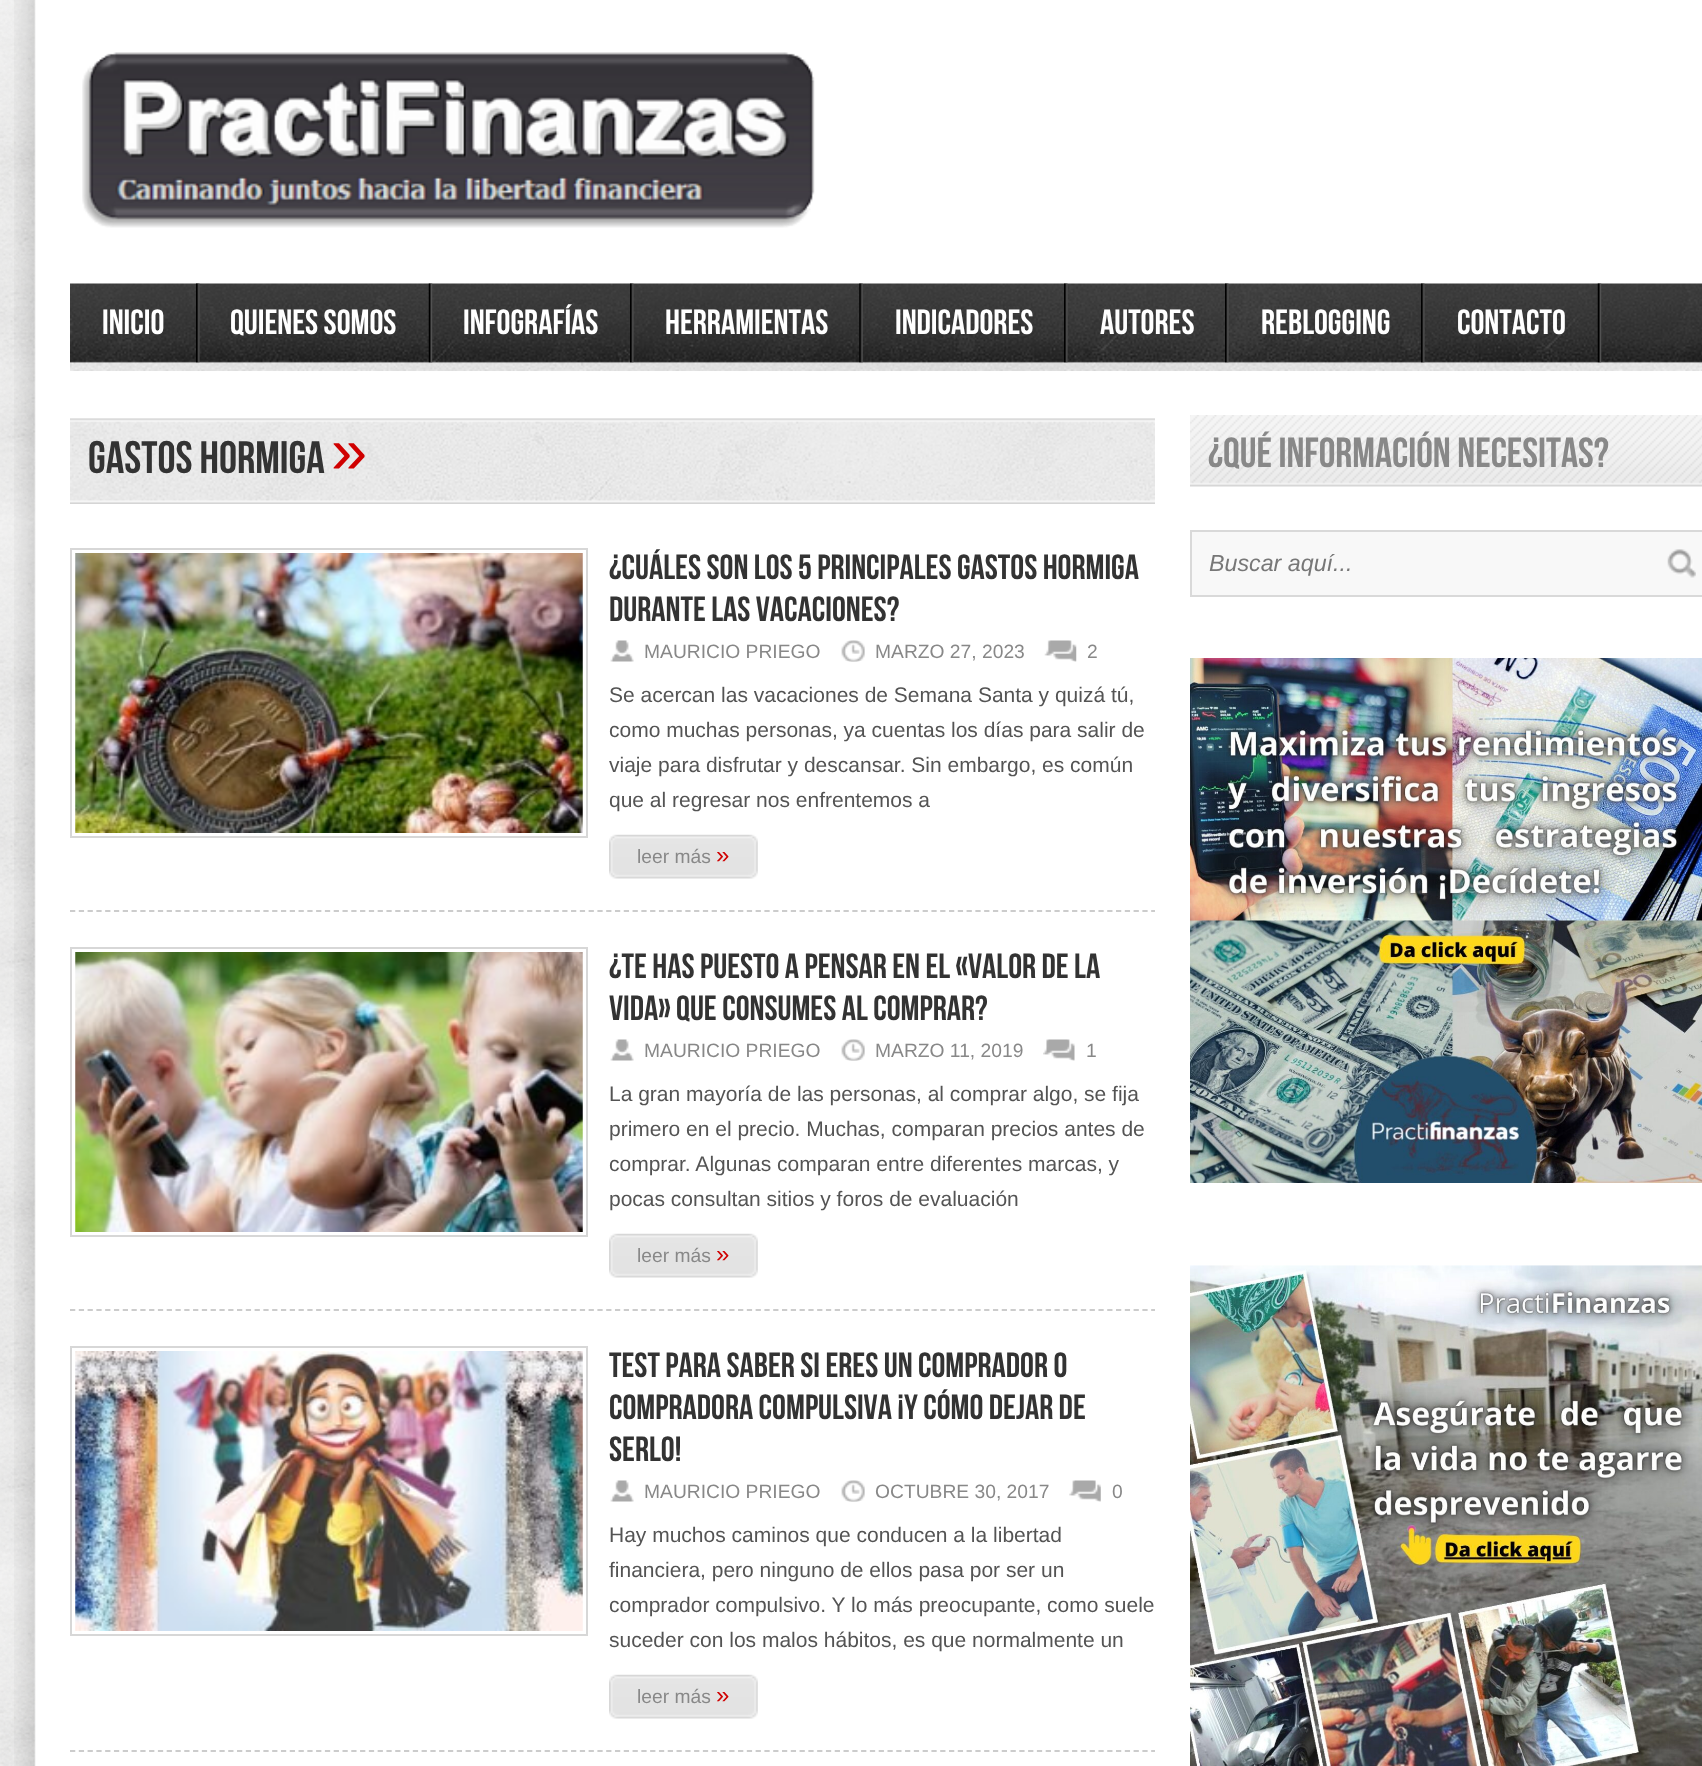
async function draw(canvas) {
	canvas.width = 1702;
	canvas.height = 1766;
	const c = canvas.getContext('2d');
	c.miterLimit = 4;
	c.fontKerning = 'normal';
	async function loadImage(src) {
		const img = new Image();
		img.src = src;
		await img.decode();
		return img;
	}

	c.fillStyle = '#f6f6f6';
	c.fillRect(0, 0, 1702, 1766);
	c.drawImage(await loadImage('img1.png'), 0, 0, 36, 1766);
	c.drawImage(await loadImage('img2.png'), 14, 0, 1688, 1766);
	c.drawImage(await loadImage('img3.png'), 82, 52, 733, 176);
	c.drawImage(await loadImage('img4.png'), 70, 283, 1632, 88);
	c.drawImage(await loadImage('img5.png'), 196, 283, 4, 80);
	c.font = '35px Bebas Neue';
	c.fillStyle = '#fff';
	c.fillText('Inicio', 102, 334);
	c.drawImage(await loadImage('img6.png'), 428, 283, 5, 80);
	c.fillText('Quienes somos', 230, 334);
	c.drawImage(await loadImage('img7.png'), 630, 283, 4, 80);
	c.fillText('Infografías', 463, 334);
	c.drawImage(await loadImage('img8.png'), 859, 283, 4, 80);
	c.fillText('Herramientas', 665, 334);
	c.drawImage(await loadImage('img9.png'), 1064, 283, 4, 80);
	c.fillText('Indicadores', 895, 334);
	c.drawImage(await loadImage('img10.png'), 1225, 283, 4, 80);
	c.fillText('Autores', 1100, 334);
	c.drawImage(await loadImage('img11.png'), 1421, 283, 4, 80);
	c.fillText('ReBlogging', 1261, 334);
	c.drawImage(await loadImage('img12.png'), 1597, 283, 5, 80);
	c.fillText('Contacto', 1457, 334);
	c.drawImage(await loadImage('img13.png'), 70, 418, 1085, 86);
	c.font = '45.5px Bebas Neue';
	c.fillStyle = '#333';
	c.fillText('gastos hormiga', 88, 473);
	c.font = '65px Liberation Sans';
	c.fillStyle = '#d00000';
	c.fillText('»', 331, 473);
	c.beginPath();
	c.moveTo(70, 911);
	c.lineTo(1155, 911);
	c.strokeStyle = '#ccc';
	c.lineWidth = 1.8;
	c.setLineDash([5.25, 3.54]);
	c.stroke();
	c.strokeStyle = '#d7d7d7';
	c.lineWidth = 2;
	c.setLineDash([]);
	c.strokeRect(71, 549, 516, 288);
	c.drawImage(await loadImage('img14.png'), 75, 553, 508, 280);
	c.font = '35px Bebas Neue';
	c.fillStyle = '#333';
	c.fillText('¿Cuáles son los 5 principales gastos hormiga', 609, 579);
	c.fillText('durante las vacaciones?', 609, 621);
	c.drawImage(await loadImage('img15.png'), 610, 640, 24, 22);
	c.font = '19.25px Liberation Sans';
	c.fillStyle = '#888';
	c.fillText('MAURICIO PRIEGO', 644, 658);
	c.drawImage(await loadImage('img16.png'), 841, 640, 24, 22);
	c.fillText('MARZO 27, 2023', 875, 658);
	c.drawImage(await loadImage('img17.png'), 1044, 640, 33, 22);
	c.fillText('2', 1087, 658);
	c.font = '21px Liberation Sans';
	c.fillStyle = '#545454';
	for (const [text, x, y] of [
		['Se acercan las vacaciones de Semana Santa y quizá tú,', 609, 702],
		['como muchas personas, ya cuentas los días para salir de', 609, 737],
		['viaje para disfrutar y descansar. Sin embargo, es común', 609, 772],
		['que al regresar nos enfrentemos a', 609, 807],
	]) {
		c.fillText(text, x, y);
	}
	c.drawImage(await loadImage('img18.png'), 609, 834, 149, 45);
	c.font = '19.25px Liberation Sans';
	c.fillStyle = '#888';
	c.fillText('leer más', 637, 863);
	c.font = '24px Liberation Sans';
	c.fillStyle = '#d00000';
	c.fillText('»', 716, 863);
	c.beginPath();
	c.moveTo(70, 1310);
	c.lineTo(1155, 1310);
	c.strokeStyle = '#ccc';
	c.lineWidth = 1.8;
	c.setLineDash([5.25, 3.54]);
	c.stroke();
	c.strokeStyle = '#d7d7d7';
	c.lineWidth = 2;
	c.setLineDash([]);
	c.strokeRect(71, 948, 516, 288);
	c.drawImage(await loadImage('img19.png'), 75, 952, 508, 280);
	c.font = '35px Bebas Neue';
	c.fillStyle = '#333';
	c.fillText('¿Te has puesto a pensar en el «Valor de la', 609, 978);
	c.fillText('Vida» que consumes al comprar?', 609, 1020);
	c.drawImage(await loadImage('img15.png'), 610, 1039, 24, 22);
	c.font = '19.25px Liberation Sans';
	c.fillStyle = '#888';
	c.fillText('MAURICIO PRIEGO', 644, 1057);
	c.drawImage(await loadImage('img16.png'), 841, 1039, 24, 22);
	c.fillText('MARZO 11, 2019', 875, 1057);
	c.drawImage(await loadImage('img20.png'), 1043, 1039, 32, 22);
	c.fillText('1', 1086, 1057);
	c.font = '21px Liberation Sans';
	c.fillStyle = '#545454';
	for (const [text, x, y] of [
		['La gran mayoría de las personas, al comprar algo, se fija', 609, 1101],
		['primero en el precio. Muchas, comparan precios antes de', 609, 1136],
		['comprar. Algunas comparan entre diferentes marcas, y', 609, 1171],
		['pocas consultan sitios y foros de evaluación', 609, 1206],
	]) {
		c.fillText(text, x, y);
	}
	c.drawImage(await loadImage('img18.png'), 609, 1233, 149, 45);
	c.font = '19.25px Liberation Sans';
	c.fillStyle = '#888';
	c.fillText('leer más', 637, 1262);
	c.font = '24px Liberation Sans';
	c.fillStyle = '#d00000';
	c.fillText('»', 716, 1262);
	c.beginPath();
	c.moveTo(70, 1751);
	c.lineTo(1155, 1751);
	c.strokeStyle = '#ccc';
	c.lineWidth = 1.8;
	c.setLineDash([5.25, 3.54]);
	c.stroke();
	c.strokeStyle = '#d7d7d7';
	c.lineWidth = 2;
	c.setLineDash([]);
	c.strokeRect(71, 1347, 516, 288);
	c.drawImage(await loadImage('img21.png'), 75, 1351, 508, 280);
	c.font = '35px Bebas Neue';
	c.fillStyle = '#333';
	for (const [text, x, y] of [
		['Test para saber si eres un comprador o', 609, 1377],
		['compradora compulsiva ¡Y cómo dejar de', 609, 1419],
		['serlo!', 609, 1461],
	]) {
		c.fillText(text, x, y);
	}
	c.drawImage(await loadImage('img15.png'), 610, 1480, 24, 22);
	c.font = '19.25px Liberation Sans';
	c.fillStyle = '#888';
	c.fillText('MAURICIO PRIEGO', 644, 1498);
	c.drawImage(await loadImage('img16.png'), 841, 1480, 24, 22);
	c.fillText('OCTUBRE 30, 2017', 875, 1498);
	c.drawImage(await loadImage('img22.png'), 1069, 1480, 32, 22);
	c.fillText('0', 1112, 1498);
	c.font = '21px Liberation Sans';
	c.fillStyle = '#545454';
	for (const [text, x, y] of [
		['Hay muchos caminos que conducen a la libertad', 609, 1542],
		['financiera, pero ninguno de ellos pasa por ser un', 609, 1577],
		['comprador compulsivo. Y lo más preocupante, como suele', 609, 1612],
		['suceder con los malos hábitos, es que normalmente un', 609, 1647],
	]) {
		c.fillText(text, x, y);
	}
	c.drawImage(await loadImage('img18.png'), 609, 1674, 149, 45);
	c.font = '19.25px Liberation Sans';
	c.fillStyle = '#888';
	c.fillText('leer más', 637, 1703);
	c.font = '24px Liberation Sans';
	c.fillStyle = '#d00000';
	c.fillText('»', 716, 1703);
	c.drawImage(await loadImage('img23.png'), 1190, 415, 512, 72);
	c.font = '42px Bebas Neue';
	c.fillStyle = '#888';
	c.fillText('¿Qué información necesitas?', 1208, 467);
	c.fillStyle = '#f8f8f8';
	c.beginPath();
	c.rect(1191, 531, 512, 65);
	c.fill();
	c.strokeStyle = '#d9d9d9';
	c.stroke();
	c.font = 'italic 23.25px Liberation Sans';
	c.fillStyle = '#777';
	c.fillText('Buscar aquí...', 1209, 571);
	c.drawImage(await loadImage('img24.png'), 1667, 549, 29, 29);
	c.drawImage(await loadImage('img25.png'), 1190, 658, 512, 525);
	c.drawImage(await loadImage('img26.png'), 1190, 1265, 512, 501);
}

draw(document.querySelector('canvas'));
